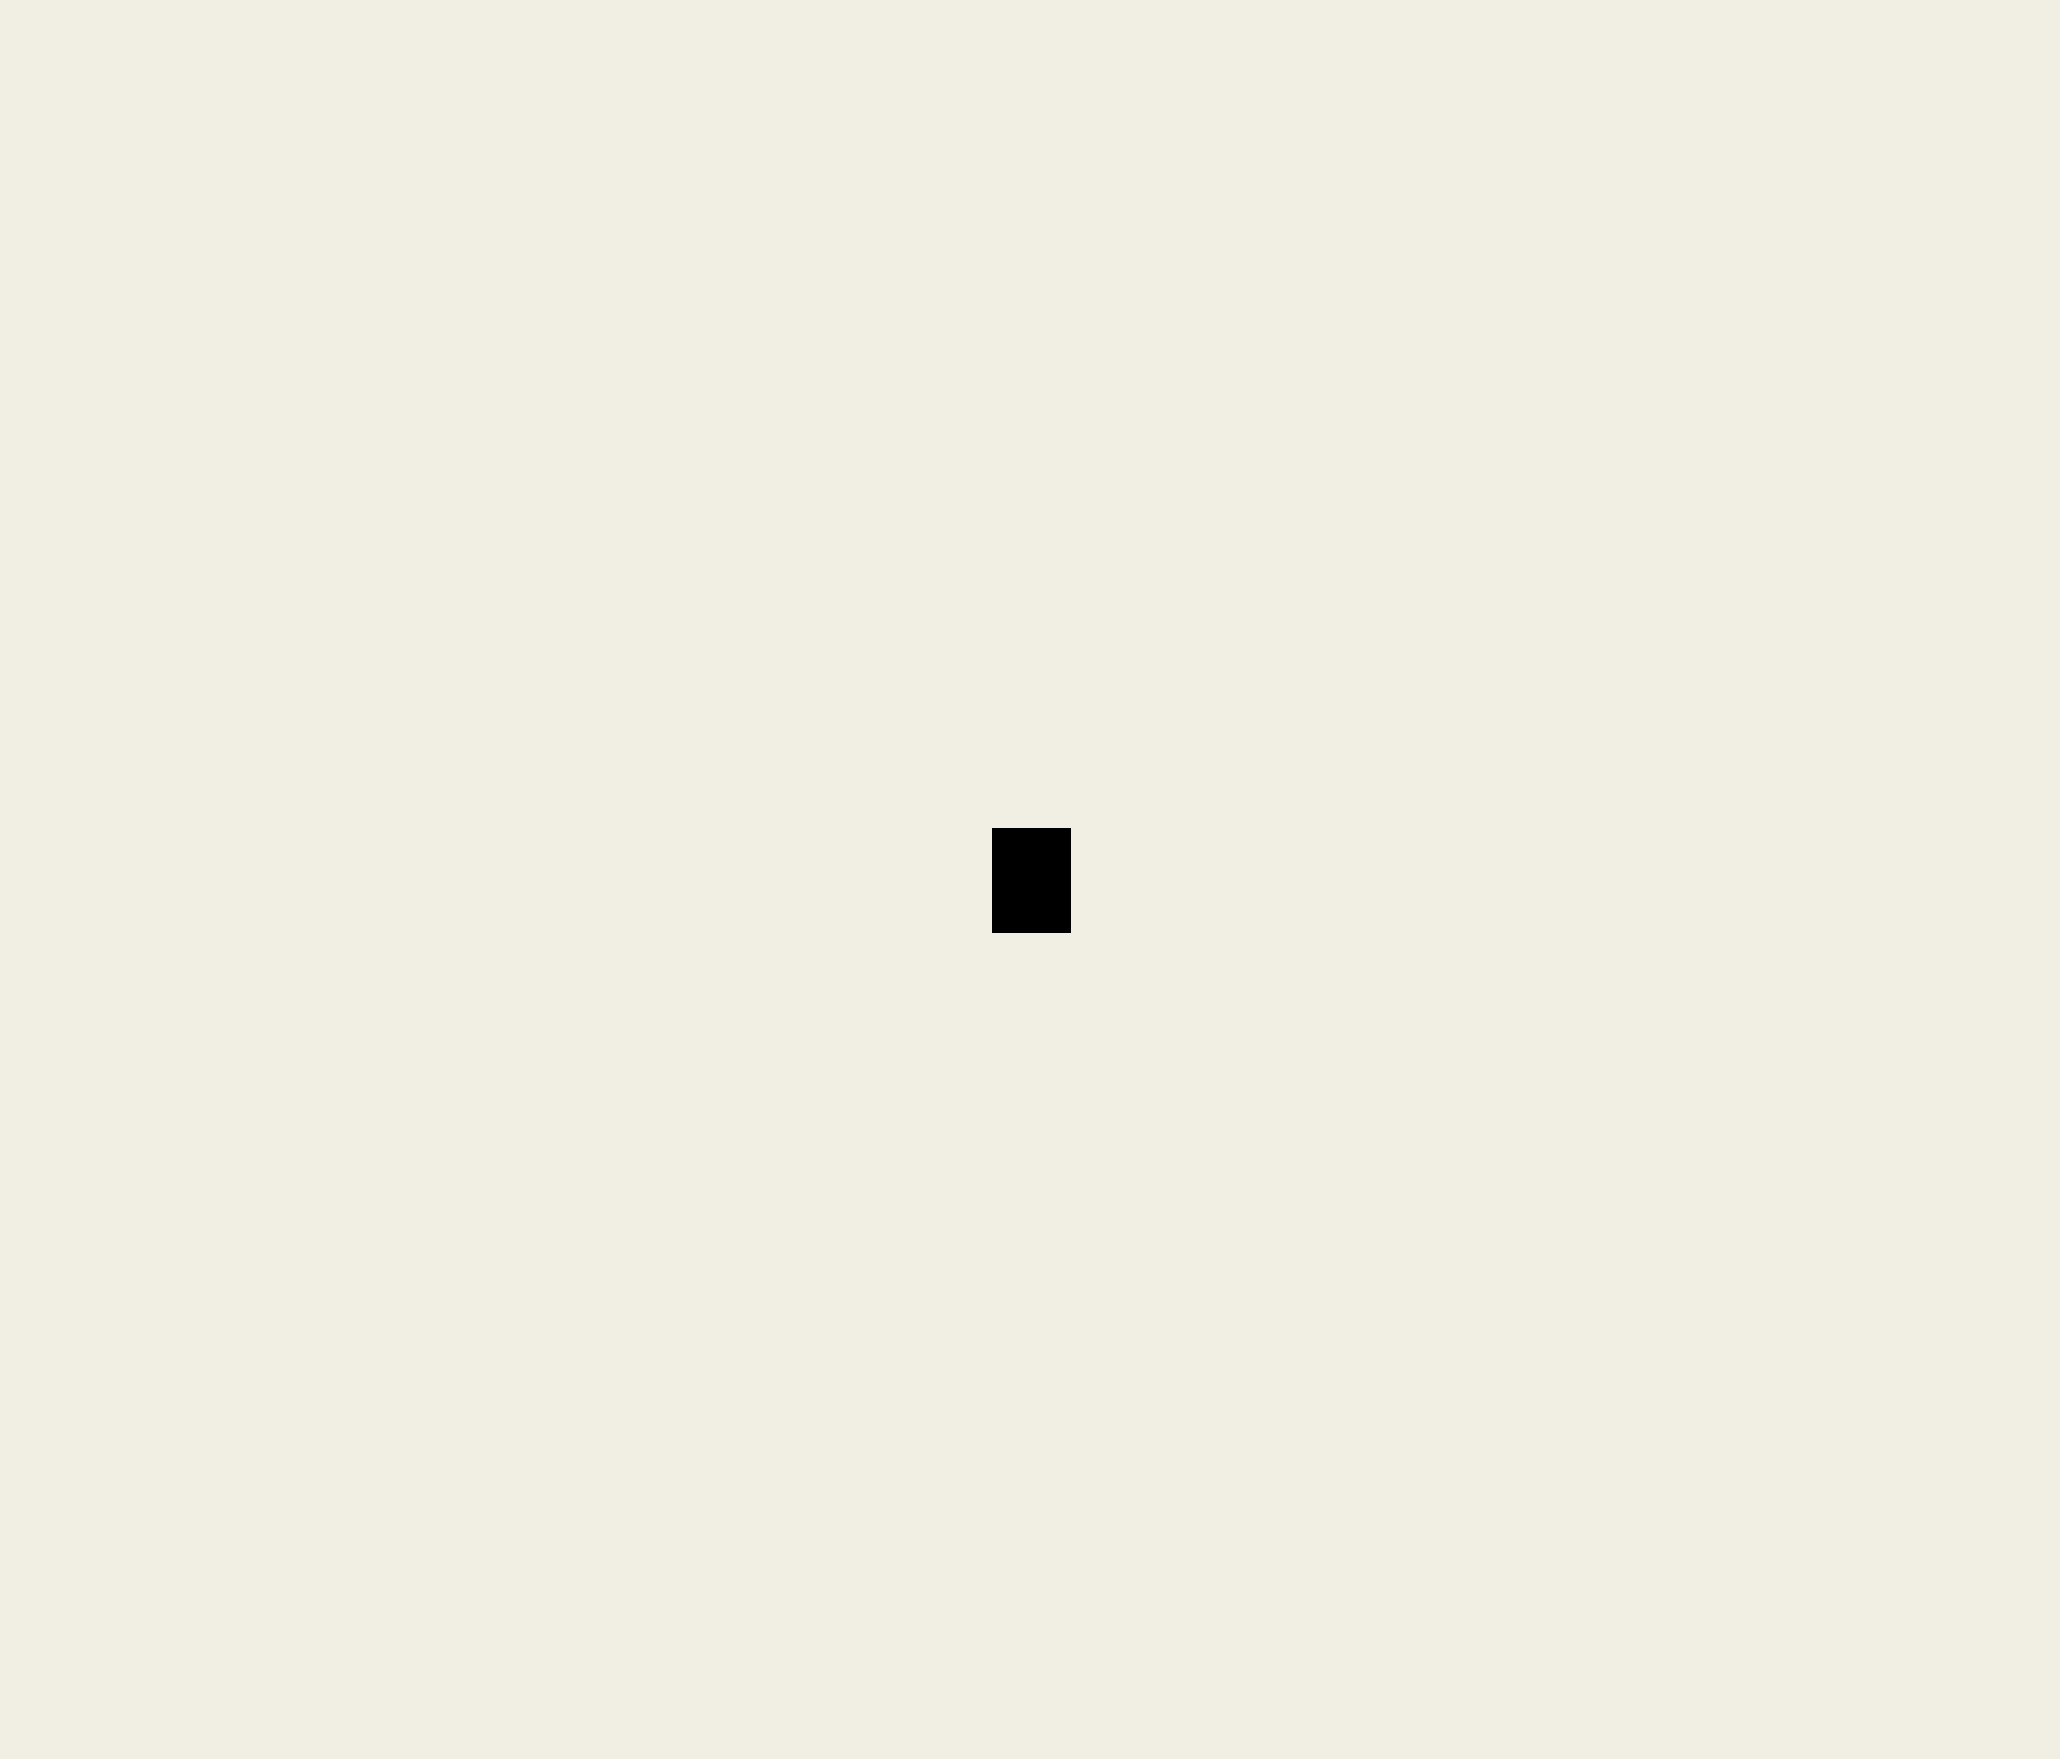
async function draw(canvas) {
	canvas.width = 2060;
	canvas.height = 1759;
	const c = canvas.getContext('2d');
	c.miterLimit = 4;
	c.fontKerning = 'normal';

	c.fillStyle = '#f1efe3';
	c.fillRect(0, 0, 2060, 1759);
	c.fillStyle = '#000';
	c.fillRect(992, 828, 79, 105);
}

draw(document.querySelector('canvas'));
